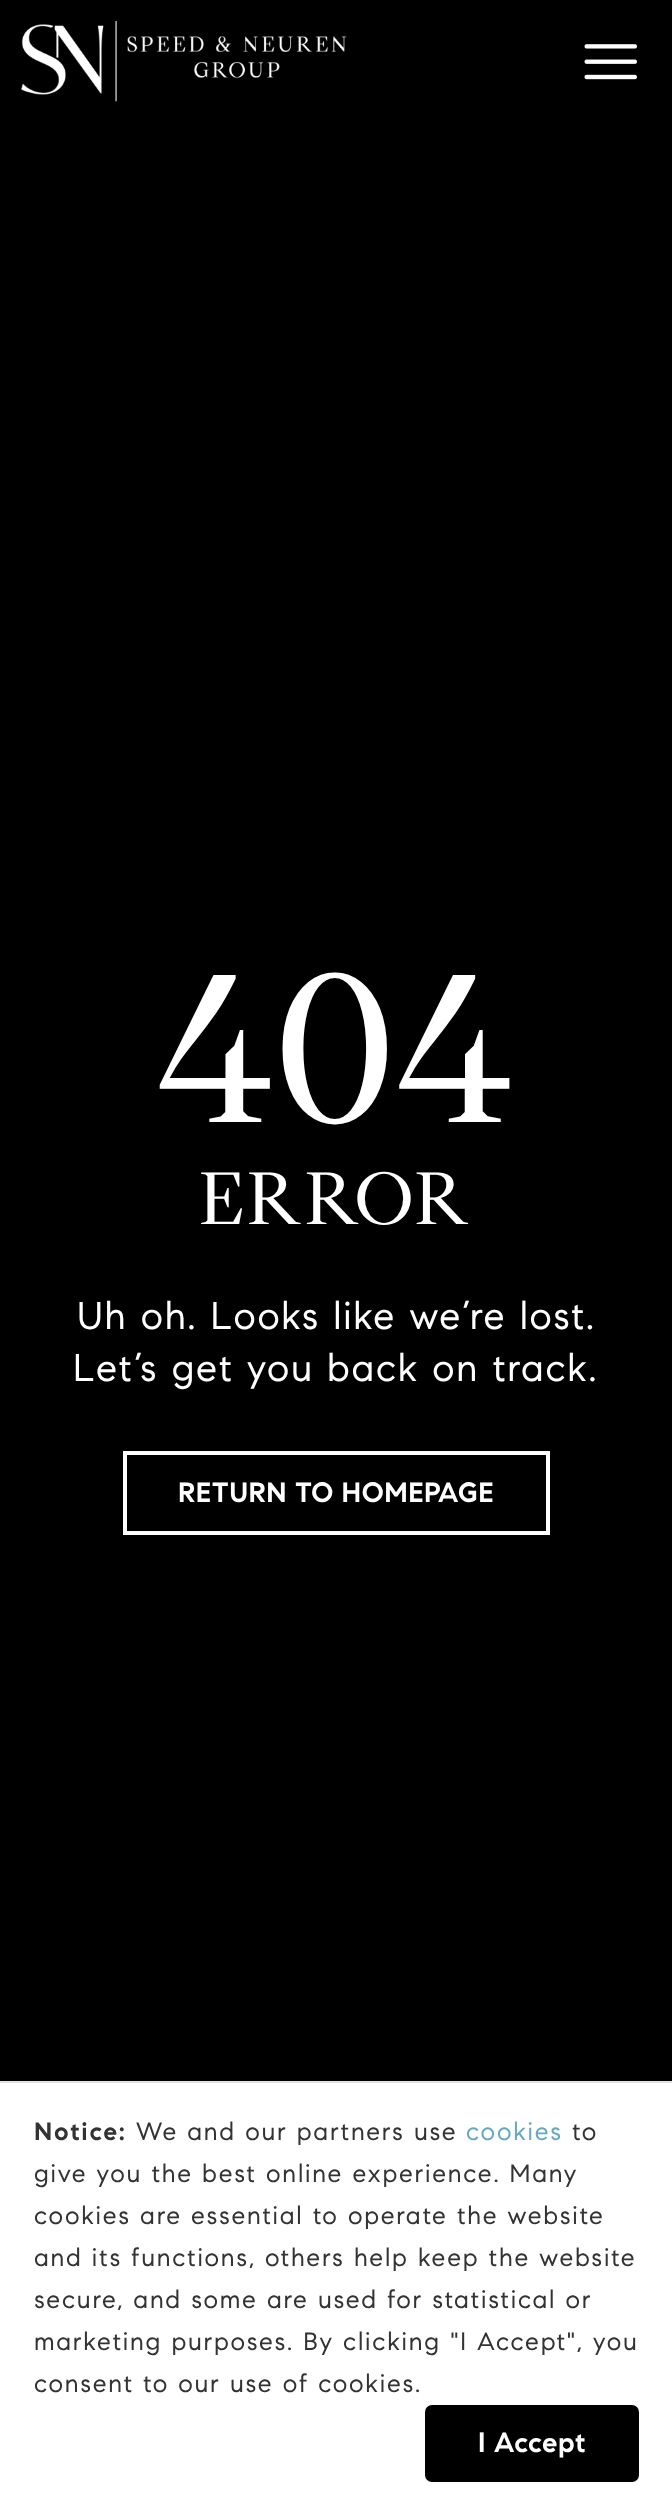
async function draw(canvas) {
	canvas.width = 672;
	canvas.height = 2508;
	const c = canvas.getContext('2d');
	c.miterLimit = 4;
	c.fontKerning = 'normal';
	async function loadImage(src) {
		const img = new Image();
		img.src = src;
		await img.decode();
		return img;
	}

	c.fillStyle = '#000';
	c.fillRect(0, 0, 672, 2508);
	c.drawImage(await loadImage('img1.png'), 21, 21, 326, 81);
	c.drawImage(await loadImage('img2.png'), 584, 44, 53, 36);
	c.letterSpacing = '3.5px';
	c.font = '210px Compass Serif';
	c.fillStyle = '#fff';
	c.fillText('404', 156, 1122);
	c.font = '73.5px Compass Serif';
	c.fillText('ERROR', 199, 1224);
	c.letterSpacing = '1.75px';
	c.font = '38.5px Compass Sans';
	c.fillText('Uh oh. Looks like we’re lost.', 77, 1329);
	c.fillText('Let’s get you back on track.', 73, 1381);
	c.strokeStyle = '#fff';
	c.lineWidth = 4;
	c.strokeRect(125, 1453, 423, 80);
	c.letterSpacing = '0.5px';
	c.font = 'bold 28px Compass Sans';
	c.fillText('RETURN TO HOMEPAGE', 178, 1502);
	c.fillRect(0, 2083, 672, 425);
	c.fillStyle = '#e1e0e3';
	c.fillRect(0, 2081, 672, 2);
	c.letterSpacing = '1.75px';
	c.font = 'bold 25.2px Compass Sans';
	c.fillStyle = '#333';
	c.fillText('Notice:', 34, 2140);
	c.font = '25.2px Compass Sans';
	c.fillText('We and our partners use', 136, 2140);
	c.fillStyle = '#66a9c4';
	c.fillText('cookies', 466, 2140);
	c.fillStyle = '#333';
	for (const [text, x, y] of [
		['to', 572, 2140],
		['give you the best online experience. Many', 34, 2182],
		['cookies are essential to operate the website', 34, 2224],
		['and its functions, others help keep the website', 34, 2266],
		['secure, and some are used for statistical or', 34, 2308],
		['marketing purposes. By clicking "I Accept", you', 34, 2350],
		['consent to our use of cookies.', 34, 2392],
	]) {
		c.fillText(text, x, y);
	}
	c.fillStyle = '#000';
	c.beginPath();
	c.roundRect(425, 2405, 214, 77, 7);
	c.fill();
	c.letterSpacing = '0.5px';
	c.font = 'bold 28px Compass Sans';
	c.fillStyle = '#fff';
	c.fillText('I Accept', 478, 2452);
}

draw(document.querySelector('canvas'));
